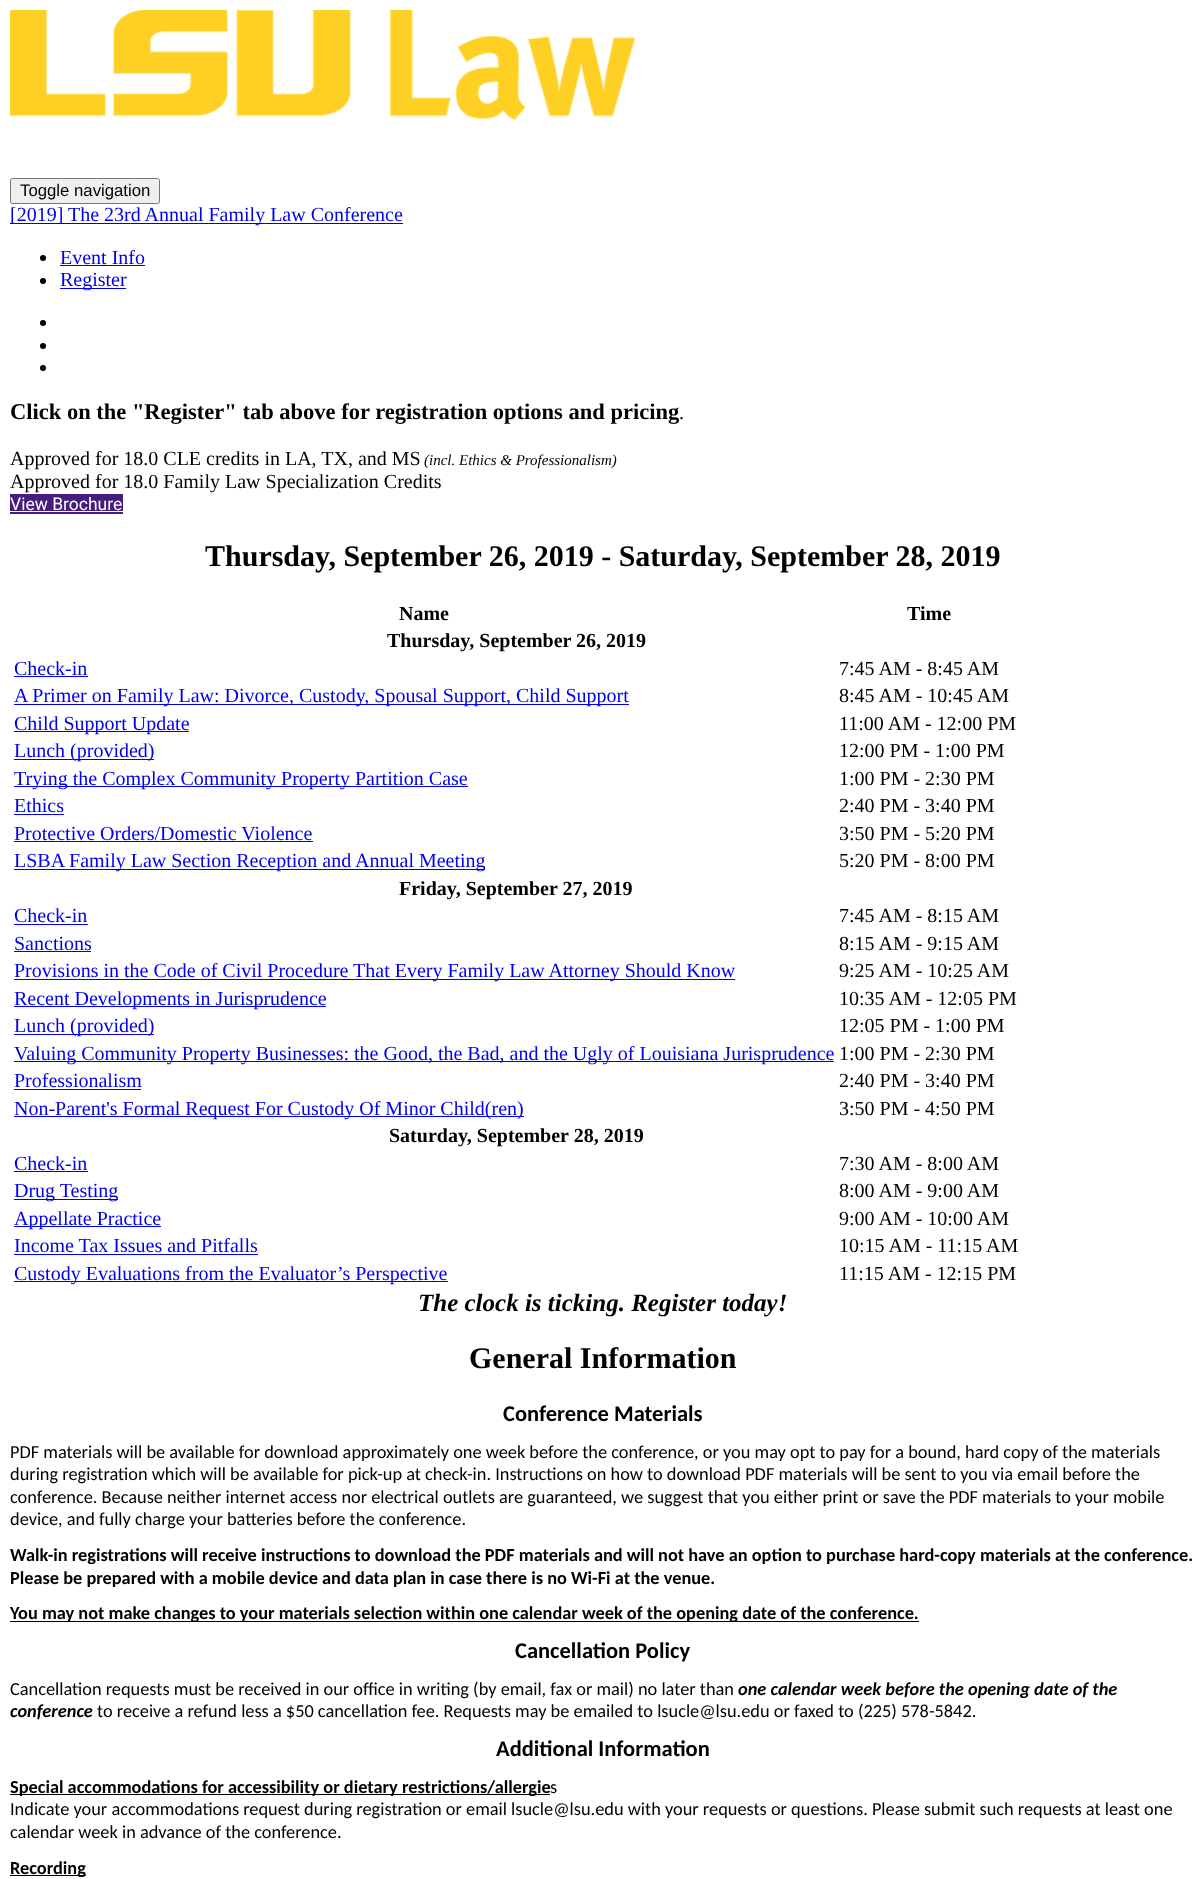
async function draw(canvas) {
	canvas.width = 1204;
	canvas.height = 1879;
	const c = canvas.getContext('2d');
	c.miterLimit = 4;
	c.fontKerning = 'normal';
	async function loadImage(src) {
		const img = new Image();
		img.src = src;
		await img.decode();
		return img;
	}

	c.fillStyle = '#fff';
	c.fillRect(0, 0, 1204, 1879);
	c.drawImage(await loadImage('img1.png'), 10, 10, 625, 110);
	c.fillStyle = '#efefef';
	c.beginPath();
	c.roundRect(10.5, 178.5, 149, 25, 2);
	c.fill();
	c.strokeStyle = '#767676';
	c.stroke();
	c.font = '16.75px Liberation Sans';
	c.fillStyle = '#000';
	c.fillText('Toggle navigation', 20, 196);
	c.fillStyle = '#00e';
	c.fillRect(10, 223, 393, 1);
	c.font = '20px Liberation Serif';
	c.fillText('[2019] The 23rd Annual Family Law Conference', 10, 221);
	c.fillStyle = '#000';
	c.beginPath();
	c.arc(43, 258, 3, 0, 2 * Math.PI);
	c.fill();
	c.fillStyle = '#00e';
	c.fillText('Event Info', 60, 264);
	c.fillRect(60, 265, 85, 1);
	c.fillStyle = '#000';
	c.beginPath();
	c.arc(43, 281, 3, 0, 2 * Math.PI);
	c.fill();
	c.fillStyle = '#00e';
	c.fillRect(60, 288, 66, 1);
	c.fillText('Register', 60, 286);
	c.fillStyle = '#000';
	c.beginPath();
	c.arc(43, 323, 3, 0, 2 * Math.PI);
	c.fill();
	c.beginPath();
	c.arc(43, 346, 3, 0, 2 * Math.PI);
	c.fill();
	c.beginPath();
	c.arc(43, 368, 3, 0, 2 * Math.PI);
	c.fill();
	c.font = 'bold 22.5px Liberation Serif';
	c.fillText('Click on the "Register" tab above for registration options and pricing', 10, 419);
	c.font = '20px Liberation Serif';
	c.fillText('.', 679, 419);
	c.fillText('Approved for 18.0 CLE credits in LA, TX, and MS', 10, 465);
	c.font = 'italic 15px Liberation Serif';
	c.fillText('(incl. Ethics & Professionalism)', 424, 465);
	c.font = '20px Liberation Serif';
	c.fillText('Approved for 18.0 Family Law Specialization Credits', 10, 488);
	c.fillStyle = '#461d7c';
	c.fillRect(10, 494, 113, 20);
	c.font = '17.5px Roboto';
	c.fillStyle = '#fff';
	c.fillText('View Brochure', 10, 510);
	c.fillRect(10, 511, 113, 1);
	c.font = 'bold 30px Liberation Serif';
	c.fillStyle = '#000';
	c.fillText('Thursday, September 26, 2019 - Saturday, September 28, 2019', 205, 566);
	c.font = 'bold 20px Liberation Serif';
	for (const [text, x, y] of [
		['Name', 399, 620],
		['Time', 907, 620],
		['Thursday, September 26, 2019', 387, 647],
	]) {
		c.fillText(text, x, y);
	}
	c.font = '20px Liberation Serif';
	c.fillStyle = '#00e';
	c.fillText('Check-in', 14, 675);
	c.fillRect(14, 676, 74, 1);
	c.fillStyle = '#000';
	c.fillText('7:45 AM - 8:45 AM', 839, 675);
	c.fillStyle = '#00e';
	c.fillRect(14, 704, 615, 1);
	c.fillText('A Primer on Family Law: Divorce, Custody, Spousal Support, Child Support', 14, 702);
	c.fillStyle = '#000';
	c.fillText('8:45 AM - 10:45 AM', 839, 702);
	c.fillStyle = '#00e';
	c.fillRect(14, 731, 175, 1);
	c.fillText('Child Support Update', 14, 730);
	c.fillStyle = '#000';
	c.fillText('11:00 AM - 12:00 PM', 839, 730);
	c.fillStyle = '#00e';
	c.fillRect(14, 759, 140, 1);
	c.fillText('Lunch (provided)', 14, 757);
	c.fillStyle = '#000';
	c.fillText('12:00 PM - 1:00 PM', 839, 757);
	c.fillStyle = '#00e';
	c.fillRect(14, 786, 454, 1);
	c.fillText('Trying the Complex Community Property Partition Case', 14, 785);
	c.fillStyle = '#000';
	c.fillText('1:00 PM - 2:30 PM', 839, 785);
	c.fillStyle = '#00e';
	c.fillText('Ethics', 14, 812);
	c.fillRect(14, 814, 50, 1);
	c.fillStyle = '#000';
	c.fillText('2:40 PM - 3:40 PM', 839, 812);
	c.fillStyle = '#00e';
	c.fillText('Protective Orders/Domestic Violence', 14, 840);
	c.fillRect(14, 841, 299, 1);
	c.fillStyle = '#000';
	c.fillText('3:50 PM - 5:20 PM', 839, 840);
	c.fillStyle = '#00e';
	c.fillRect(14, 869, 471, 1);
	c.fillText('LSBA Family Law Section Reception and Annual Meeting', 14, 867);
	c.fillStyle = '#000';
	c.fillText('5:20 PM - 8:00 PM', 839, 867);
	c.font = 'bold 20px Liberation Serif';
	c.fillText('Friday, September 27, 2019', 399, 895);
	c.font = '20px Liberation Serif';
	c.fillStyle = '#00e';
	c.fillText('Check-in', 14, 922);
	c.fillRect(14, 924, 74, 1);
	c.fillStyle = '#000';
	c.fillText('7:45 AM - 8:15 AM', 839, 922);
	c.fillStyle = '#00e';
	c.fillText('Sanctions', 14, 950);
	c.fillRect(14, 951, 77, 1);
	c.fillStyle = '#000';
	c.fillText('8:15 AM - 9:15 AM', 839, 950);
	c.fillStyle = '#00e';
	c.fillRect(14, 979, 721, 1);
	c.fillText('Provisions in the Code of Civil Procedure That Every Family Law Attorney Should Know', 14, 977);
	c.fillStyle = '#000';
	c.fillText('9:25 AM - 10:25 AM', 839, 977);
	c.fillStyle = '#00e';
	c.fillRect(14, 1006, 312, 1);
	c.fillText('Recent Developments in Jurisprudence', 14, 1005);
	c.fillStyle = '#000';
	c.fillText('10:35 AM - 12:05 PM', 839, 1005);
	c.fillStyle = '#00e';
	c.fillRect(14, 1034, 140, 1);
	c.fillText('Lunch (provided)', 14, 1032);
	c.fillStyle = '#000';
	c.fillText('12:05 PM - 1:00 PM', 839, 1032);
	c.fillStyle = '#00e';
	c.fillRect(14, 1061, 820, 1);
	c.fillText('Valuing Community Property Businesses: the Good, the Bad, and the Ugly of Louisiana Jurisprudence', 14, 1060);
	c.fillStyle = '#000';
	c.fillText('1:00 PM - 2:30 PM', 839, 1060);
	c.fillStyle = '#00e';
	c.fillText('Professionalism', 14, 1087);
	c.fillRect(14, 1089, 127, 1);
	c.fillStyle = '#000';
	c.fillText('2:40 PM - 3:40 PM', 839, 1087);
	c.fillStyle = '#00e';
	c.fillRect(14, 1116, 510, 1);
	c.fillText('Non-Parent\'s Formal Request For Custody Of Minor Child(ren)', 14, 1115);
	c.fillStyle = '#000';
	c.fillText('3:50 PM - 4:50 PM', 839, 1115);
	c.font = 'bold 20px Liberation Serif';
	c.fillText('Saturday, September 28, 2019', 389, 1142);
	c.font = '20px Liberation Serif';
	c.fillStyle = '#00e';
	c.fillText('Check-in', 14, 1170);
	c.fillRect(14, 1171, 74, 1);
	c.fillStyle = '#000';
	c.fillText('7:30 AM - 8:00 AM', 839, 1170);
	c.fillStyle = '#00e';
	c.fillRect(14, 1199, 104, 1);
	c.fillText('Drug Testing', 14, 1197);
	c.fillStyle = '#000';
	c.fillText('8:00 AM - 9:00 AM', 839, 1197);
	c.fillStyle = '#00e';
	c.fillRect(14, 1226, 147, 1);
	c.fillText('Appellate Practice', 14, 1225);
	c.fillStyle = '#000';
	c.fillText('9:00 AM - 10:00 AM', 839, 1225);
	c.fillStyle = '#00e';
	c.fillText('Income Tax Issues and Pitfalls', 14, 1252);
	c.fillRect(14, 1254, 244, 1);
	c.fillStyle = '#000';
	c.fillText('10:15 AM - 11:15 AM', 839, 1252);
	c.fillStyle = '#00e';
	c.fillRect(14, 1281, 434, 1);
	c.fillText('Custody Evaluations from the Evaluator’s Perspective', 14, 1280);
	c.fillStyle = '#000';
	c.fillText('11:15 AM - 12:15 PM', 839, 1280);
	c.font = 'italic bold 25px Liberation Serif';
	c.fillText('The clock is ticking. Register today!', 418, 1311);
	c.font = 'bold 30px Liberation Serif';
	c.fillText('General Information', 469, 1368);
	c.font = 'bold 22.5px Carlito';
	c.fillText('Conference Materials', 503, 1421);
	c.font = '18.33px Carlito';
	for (const [text, x, y] of [
		['PDF materials will be available for download approximately one week before the conference, or you may opt to pay for a bound, hard copy of the materials', 10, 1458],
		['during registration which will be available for pick-up at check-in. Instructions on how to download PDF materials will be sent to you via email before the', 10, 1480],
		['conference. Because neither internet access nor electrical outlets are guaranteed, we suggest that you either print or save the PDF materials to your mobile', 10, 1503],
		['device, and fully charge your batteries before the conference.', 10, 1525],
	]) {
		c.fillText(text, x, y);
	}
	c.font = 'bold 18.33px Carlito';
	c.fillText('Walk-in registrations will receive instructions to download the PDF materials and will not have an option to purchase hard-copy materials at the conference.', 10, 1561);
	c.fillText('Please be prepared with a mobile device and data plan in case there is no Wi-Fi at the venue.', 10, 1584);
	c.fillRect(10, 1621, 909, 1);
	c.fillText('You may not make changes to your materials selection within one calendar week of the opening date of the conference.', 10, 1619);
	c.font = 'bold 22.5px Carlito';
	c.fillText('Cancellation Policy', 515, 1658);
	c.font = '18.33px Carlito';
	c.fillText('Cancellation requests must be received in our office in writing (by email, fax or mail) no later than', 10, 1695);
	c.font = 'italic bold 18.33px Carlito';
	c.fillText('one calendar week before the opening date of the', 738, 1695);
	c.fillText('conference', 10, 1717);
	c.font = '18.33px Carlito';
	c.fillText('to receive a refund less a $50 cancellation fee. Requests may be emailed to lsucle@lsu.edu or faxed to (225) 578-5842.', 97, 1717);
	c.font = 'bold 22.5px Carlito';
	c.fillText('Additional Information', 496, 1756);
	c.fillRect(10, 1794, 540, 1);
	c.font = 'bold 18.33px Carlito';
	c.fillText('Special accommodations for accessibility or dietary restrictions/allergie', 10, 1793);
	c.font = '18.33px Carlito';
	for (const [text, x, y] of [
		['s', 550, 1793],
		['Indicate your accommodations request during registration or email lsucle@lsu.edu with your requests or questions. Please submit such requests at least one', 10, 1815],
		['calendar week in advance of the conference.', 10, 1838],
	]) {
		c.fillText(text, x, y);
	}
	c.fillRect(10, 1875, 76, 1);
	c.font = 'bold 18.33px Carlito';
	c.fillText('Recording', 10, 1874);
}

draw(document.querySelector('canvas'));
